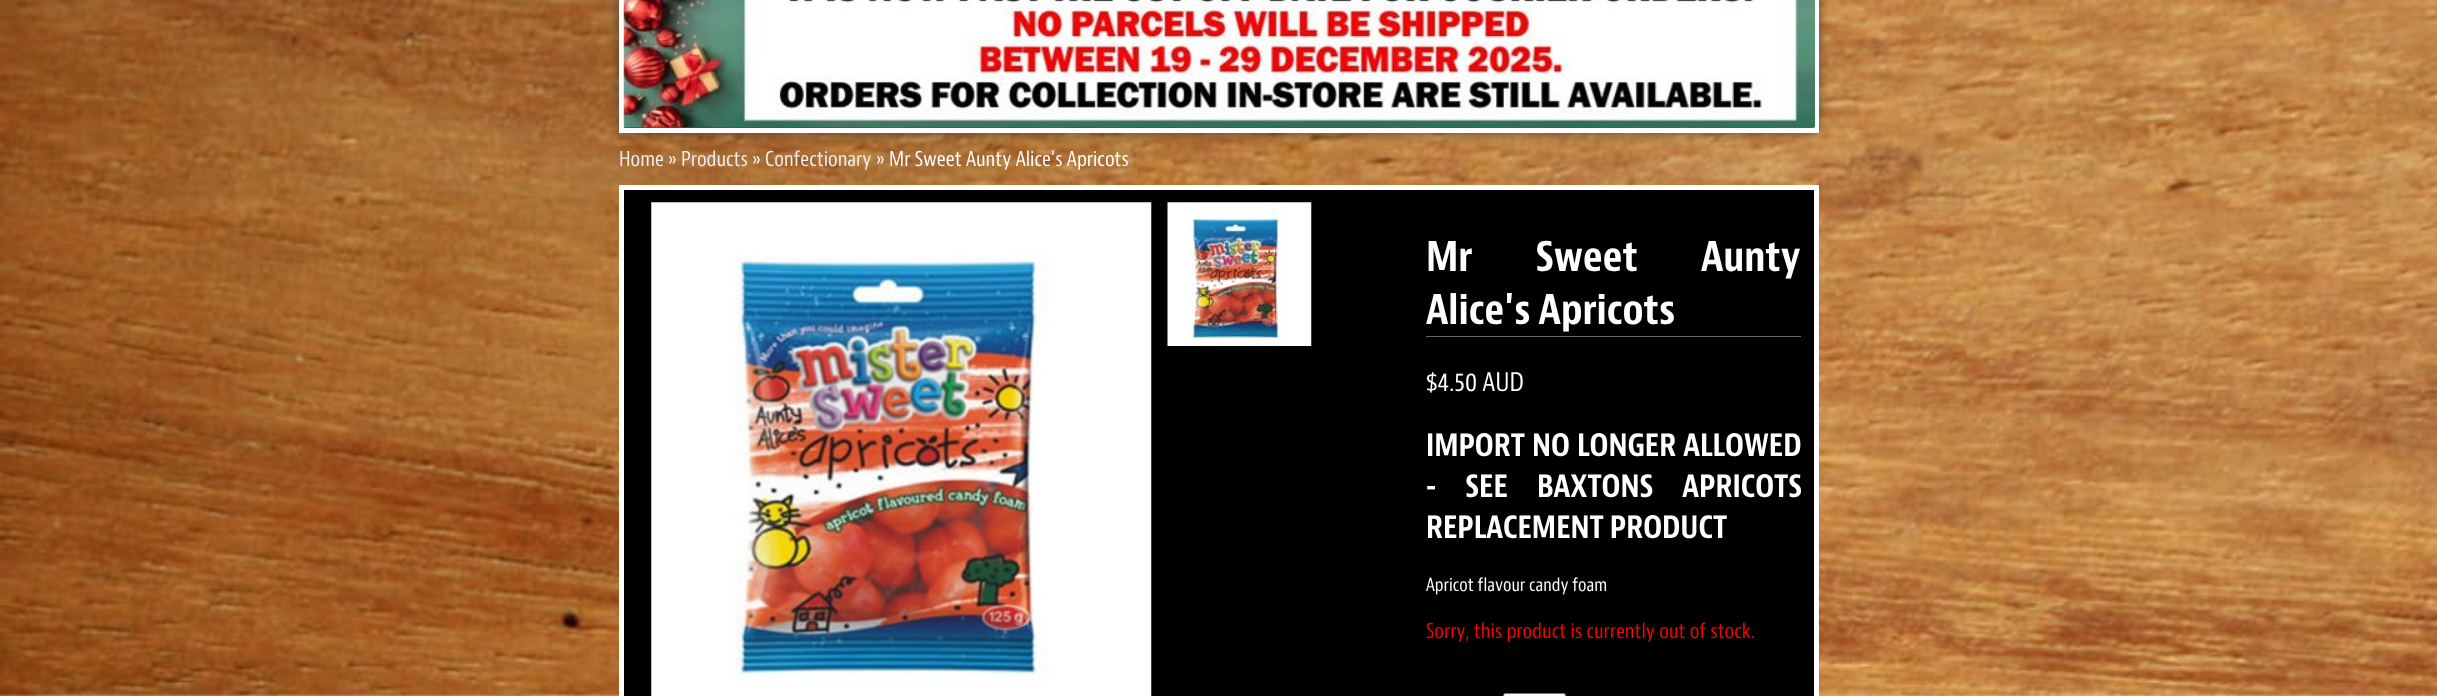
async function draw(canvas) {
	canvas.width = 2437;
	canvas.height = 696;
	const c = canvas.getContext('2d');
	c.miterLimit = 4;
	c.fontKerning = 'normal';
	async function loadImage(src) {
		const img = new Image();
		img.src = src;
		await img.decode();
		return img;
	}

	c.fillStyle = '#fff';
	c.fillRect(0, 0, 2437, 696);
	c.drawImage(await loadImage('img1.png'), 0, 0, 2437, 696);
	c.fillStyle = '#323232b3';
	c.filter = 'blur(6px)';
	c.beginPath();
	c.rect(619, -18, 1200, 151);
	c.fill();
	c.filter = 'none';
	c.strokeStyle = '#fff';
	c.lineWidth = 5;
	c.strokeRect(621.5, -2.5, 1195, 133);
	c.drawImage(await loadImage('img2.png'), 623, 0, 1192, 128);
	c.font = '20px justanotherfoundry';
	c.fillStyle = '#eee';
	c.fillText('Home', 619, 166);
	c.fillStyle = '#fff';
	c.fillText('»', 668, 166);
	c.fillStyle = '#eee';
	c.fillText('Products', 681, 166);
	c.fillStyle = '#fff';
	c.fillText('»', 752, 166);
	c.fillStyle = '#eee';
	c.fillText('Confectionary', 765, 166);
	c.fillStyle = '#fff';
	c.fillText('» Mr Sweet Aunty Alice\'s Apricots', 876, 166);
	c.fillStyle = '#000';
	c.beginPath();
	c.rect(621.5, 187.5, 1195, 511);
	c.fill();
	c.stroke();
	c.drawImage(await loadImage('img3.png'), 651, 202, 501, 494);
	c.drawImage(await loadImage('img4.png'), 1167, 202, 145, 144);
	c.fillStyle = '#646566';
	c.fillRect(1426, 336, 375, 1);
	c.wordSpacing = '55px';
	c.font = 'bold 40px justanotherfoundry';
	c.fillStyle = '#fff';
	c.fillText('Mr Sweet Aunty', 1426, 271);
	c.wordSpacing = '0px';
	c.fillText('Alice\'s Apricots', 1426, 324);
	c.font = '25px justanotherfoundry';
	c.fillText('$4.50 AUD', 1426, 391);
	c.wordSpacing = '1px';
	c.font = 'bold 30px justanotherfoundry';
	c.fillText('IMPORT NO LONGER ALLOWED', 1426, 456);
	c.wordSpacing = '23px';
	c.fillText('- SEE BAXTONS APRICOTS', 1426, 497);
	c.wordSpacing = '0px';
	c.fillText('REPLACEMENT PRODUCT', 1426, 538);
	c.font = '17.5px justanotherfoundry';
	c.fillText('Apricot flavour candy foam', 1426, 591);
	c.font = '20px justanotherfoundry';
	c.fillStyle = '#f00';
	c.fillText('Sorry, this product is currently out of stock.', 1426, 638);
	c.fillStyle = '#fff';
	c.beginPath();
	c.roundRect(1503.5, 693.5, 62, 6, 2);
	c.fill();
	c.strokeStyle = '#767676';
	c.lineWidth = 1;
	c.stroke();
}

draw(document.querySelector('canvas'));
